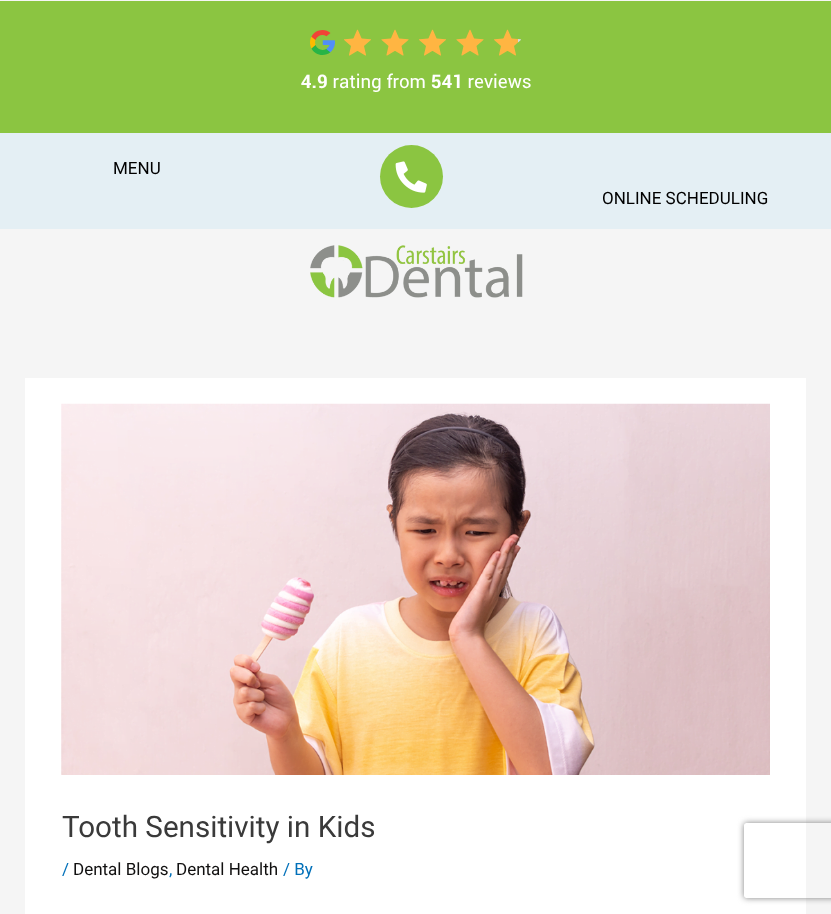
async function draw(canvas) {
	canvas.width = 831;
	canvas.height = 914;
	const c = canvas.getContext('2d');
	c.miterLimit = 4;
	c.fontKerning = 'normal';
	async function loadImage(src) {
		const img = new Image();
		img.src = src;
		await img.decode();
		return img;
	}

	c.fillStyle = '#f5f5f5';
	c.fillRect(0, 0, 831, 914);
	c.fillStyle = '#8bc541';
	c.fillRect(0, 1, 831, 132);
	c.drawImage(await loadImage('img1.png'), 301, 29, 230, 63);
	c.fillStyle = '#e4eff4';
	c.fillRect(0, 133, 831, 96);
	c.font = '17px Roboto';
	c.fillStyle = '#000';
	c.fillText('MENU', 113, 174);
	c.fillStyle = '#8bc541';
	c.beginPath();
	c.arc(411.5, 176.5, 31.5, 0, 2 * Math.PI);
	c.fill();
	c.drawImage(await loadImage('img2.png'), 395, 161, 32, 32);
	c.fillStyle = '#000';
	c.fillText('ONLINE SCHEDULING', 602, 204);
	c.drawImage(await loadImage('img3.png'), 310, 245, 213, 53);
	c.fillStyle = '#fff';
	c.fillRect(25, 378, 781, 536);
	c.drawImage(await loadImage('img4.png'), 61, 403, 709, 372);
	c.font = '29.6px Roboto';
	c.fillStyle = '#3a3a3a';
	c.fillText('Tooth Sensitivity in Kids', 62, 837);
	c.font = '17px Roboto';
	c.fillStyle = '#0170b9';
	c.fillText('/', 62, 875);
	c.fillStyle = '#111010';
	c.fillText('Dental Blogs', 73, 875);
	c.fillStyle = '#0170b9';
	c.fillText(',', 169, 875);
	c.fillStyle = '#111010';
	c.fillText('Dental Health', 176, 875);
	c.fillStyle = '#0170b9';
	c.fillText('/ By', 283, 875);
	c.save();
	c.beginPath();
	c.moveTo(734, 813);
	c.lineTo(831, 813);
	c.lineTo(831, 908);
	c.lineTo(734, 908);
	c.closePath();
	c.moveTo(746.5, 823);
	c.lineTo(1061.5, 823);
	c.bezierCurveTo(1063, 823, 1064, 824, 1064, 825.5);
	c.lineTo(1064, 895.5);
	c.bezierCurveTo(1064, 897, 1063, 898, 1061.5, 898);
	c.lineTo(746.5, 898);
	c.bezierCurveTo(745, 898, 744, 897, 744, 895.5);
	c.lineTo(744, 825.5);
	c.bezierCurveTo(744, 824, 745, 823, 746.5, 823);
	c.closePath();
	c.clip('evenodd');
	c.fillStyle = '#808080';
	c.filter = 'blur(3px)';
	c.beginPath();
	c.roundRect(744, 823, 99, 75, 2.5);
	c.fill();
	c.filter = 'none';
	c.restore();
}

draw(document.querySelector('canvas'));
